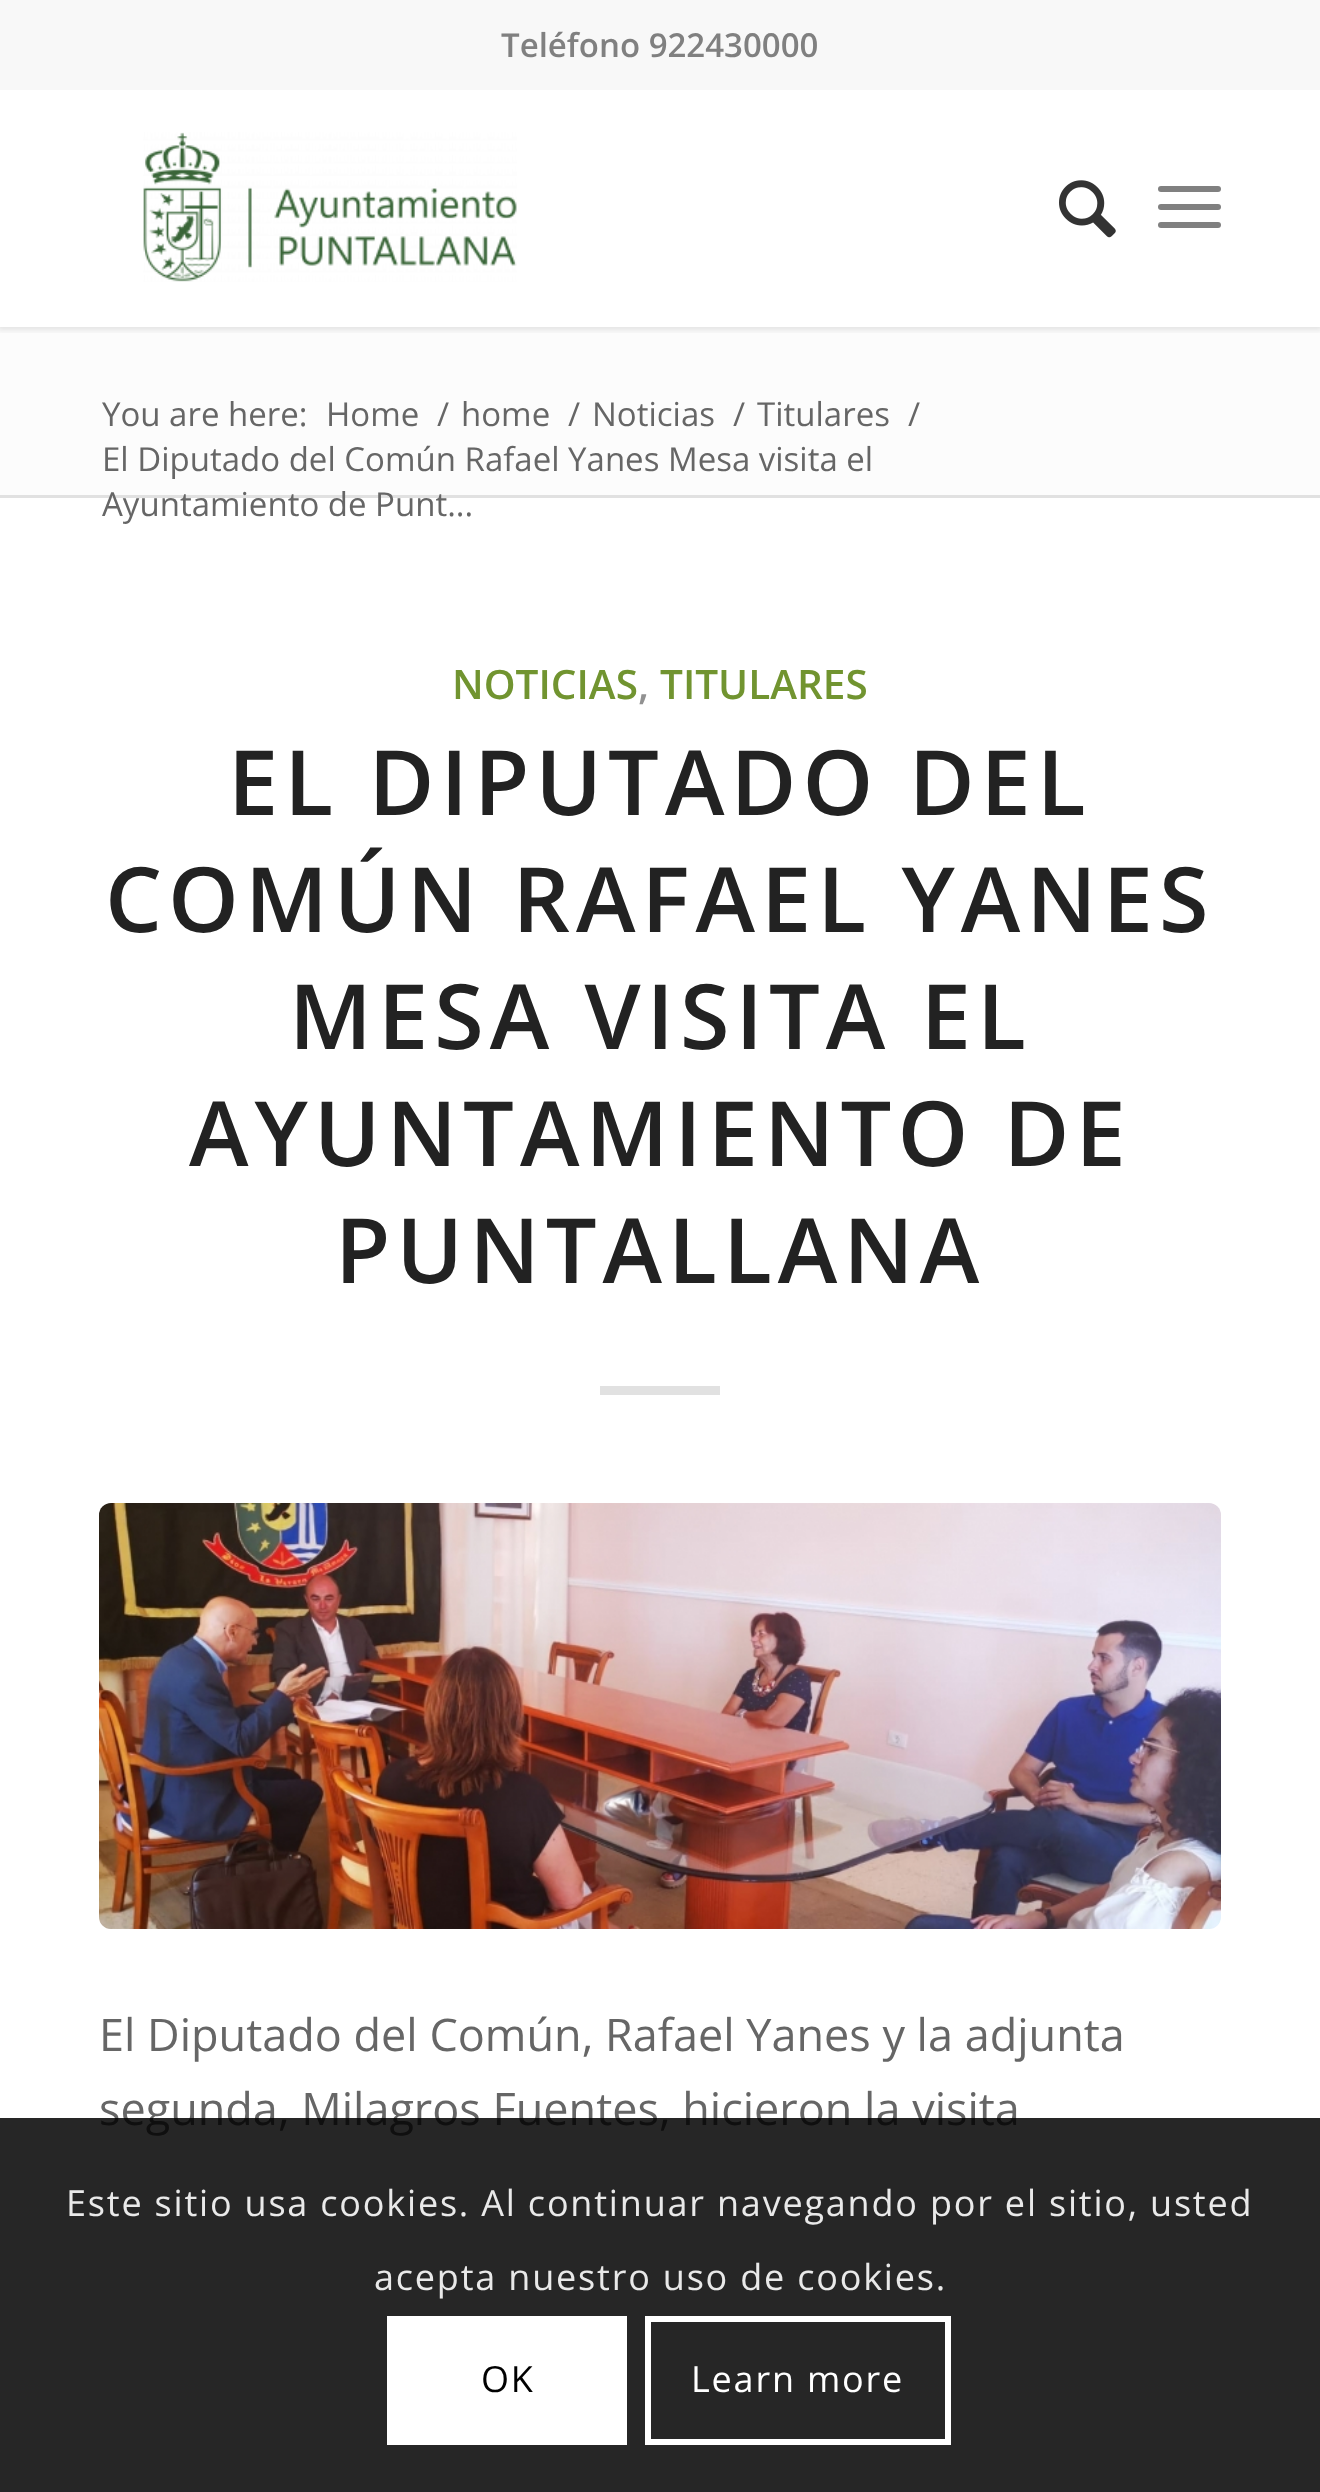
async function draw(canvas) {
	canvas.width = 1320;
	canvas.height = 2492;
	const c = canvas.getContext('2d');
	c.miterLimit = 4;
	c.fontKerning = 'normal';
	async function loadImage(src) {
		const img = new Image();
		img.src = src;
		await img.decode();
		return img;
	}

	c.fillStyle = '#fff';
	c.fillRect(0, 0, 1320, 2492);
	c.fillStyle = '#fcfcfc';
	c.fillRect(0, 327, 1320, 168);
	c.save();
	c.beginPath();
	c.rect(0, 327, 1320, 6);
	c.clip();
	c.fillStyle = '#0000001a';
	c.filter = 'blur(3px)';
	c.beginPath();
	c.rect(-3, -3, 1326, 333);
	c.fill();
	c.filter = 'none';
	c.restore();
	c.fillStyle = '#f8f8f8';
	c.fillRect(0, 0, 1320, 90);
	c.font = '600 33px Open Sans';
	c.fillStyle = '#808080';
	c.fillText('Teléfono 922430000', 501, 57);
	c.drawImage(await loadImage('img1.png'), 143, 132, 374, 150);
	c.drawImage(await loadImage('img2.png'), 1059, 180, 57, 58);
	c.beginPath();
	c.roundRect(1158, 204, 63, 6, 3);
	c.fill();
	c.beginPath();
	c.roundRect(1158, 186, 63, 6, 3);
	c.fill();
	c.beginPath();
	c.roundRect(1158, 222, 63, 6, 3);
	c.fill();
	c.font = '33px Open Sans';
	c.fillStyle = '#666';
	for (const [text, x, y] of [
		['You are here:', 102, 426],
		['Home', 326, 426],
		['/', 437, 426],
		['home', 461, 426],
		['/', 568, 426],
		['Noticias', 592, 426],
		['/', 733, 426],
		['Titulares', 757, 426],
		['/', 908, 426],
		['El Diputado del Común Rafael Yanes Mesa visita el', 102, 471],
	]) {
		c.fillText(text, x, y);
	}
	c.fillStyle = '#e1e1e1';
	c.fillRect(0, 495, 1320, 3);
	c.fillStyle = '#666';
	c.fillText('Ayuntamiento de Punt...', 102, 516);
	c.font = '600 40.5px Open Sans';
	c.fillStyle = '#719430';
	c.fillText('NOTICIAS', 452, 699);
	c.fillStyle = '#919191';
	c.fillText(',', 638, 699);
	c.fillStyle = '#719430';
	c.fillText('TITULARES', 660, 699);
	c.letterSpacing = '6px';
	c.font = '600 90px Open Sans';
	c.fillStyle = '#222';
	for (const [text, x, y] of [
		['EL DIPUTADO DEL', 228, 815],
		['COMÚN RAFAEL YANES', 105, 932],
		['MESA VISITA EL', 289, 1049],
		['AYUNTAMIENTO DE', 189, 1166],
		['PUNTALLANA', 335, 1283],
	]) {
		c.fillText(text, x, y);
	}
	c.fillStyle = '#e1e1e1';
	c.fillRect(600, 1386, 120, 9);
	c.drawImage(await loadImage('img3.png'), 99, 1503, 1122, 426);
	c.letterSpacing = '0px';
	c.font = '45px Open Sans';
	c.fillStyle = '#666';
	c.fillText('El Diputado del Común, Rafael Yanes y la adjunta', 99, 2051);
	c.fillText('segunda, Milagros Fuentes, hicieron la visita', 99, 2125);
	c.fillStyle = '#000000d9';
	c.fillRect(0, 2118, 1320, 374);
	c.letterSpacing = '1.8px';
	c.font = '36px Open Sans';
	c.fillStyle = '#e9e9e9';
	c.fillText('Este sitio usa cookies. Al continuar navegando por el sitio, usted', 66, 2216);
	c.fillText('acepta nuestro uso de cookies.', 374, 2290);
	c.fillStyle = '#fff';
	c.fillRect(387, 2316, 240, 129);
	c.fillStyle = '#000';
	c.fillText('OK', 481, 2392);
	c.strokeStyle = '#fff';
	c.lineWidth = 6;
	c.strokeRect(648, 2319, 300, 123);
	c.fillStyle = '#fff';
	c.fillText('Learn more', 691, 2392);
}

draw(document.querySelector('canvas'));
